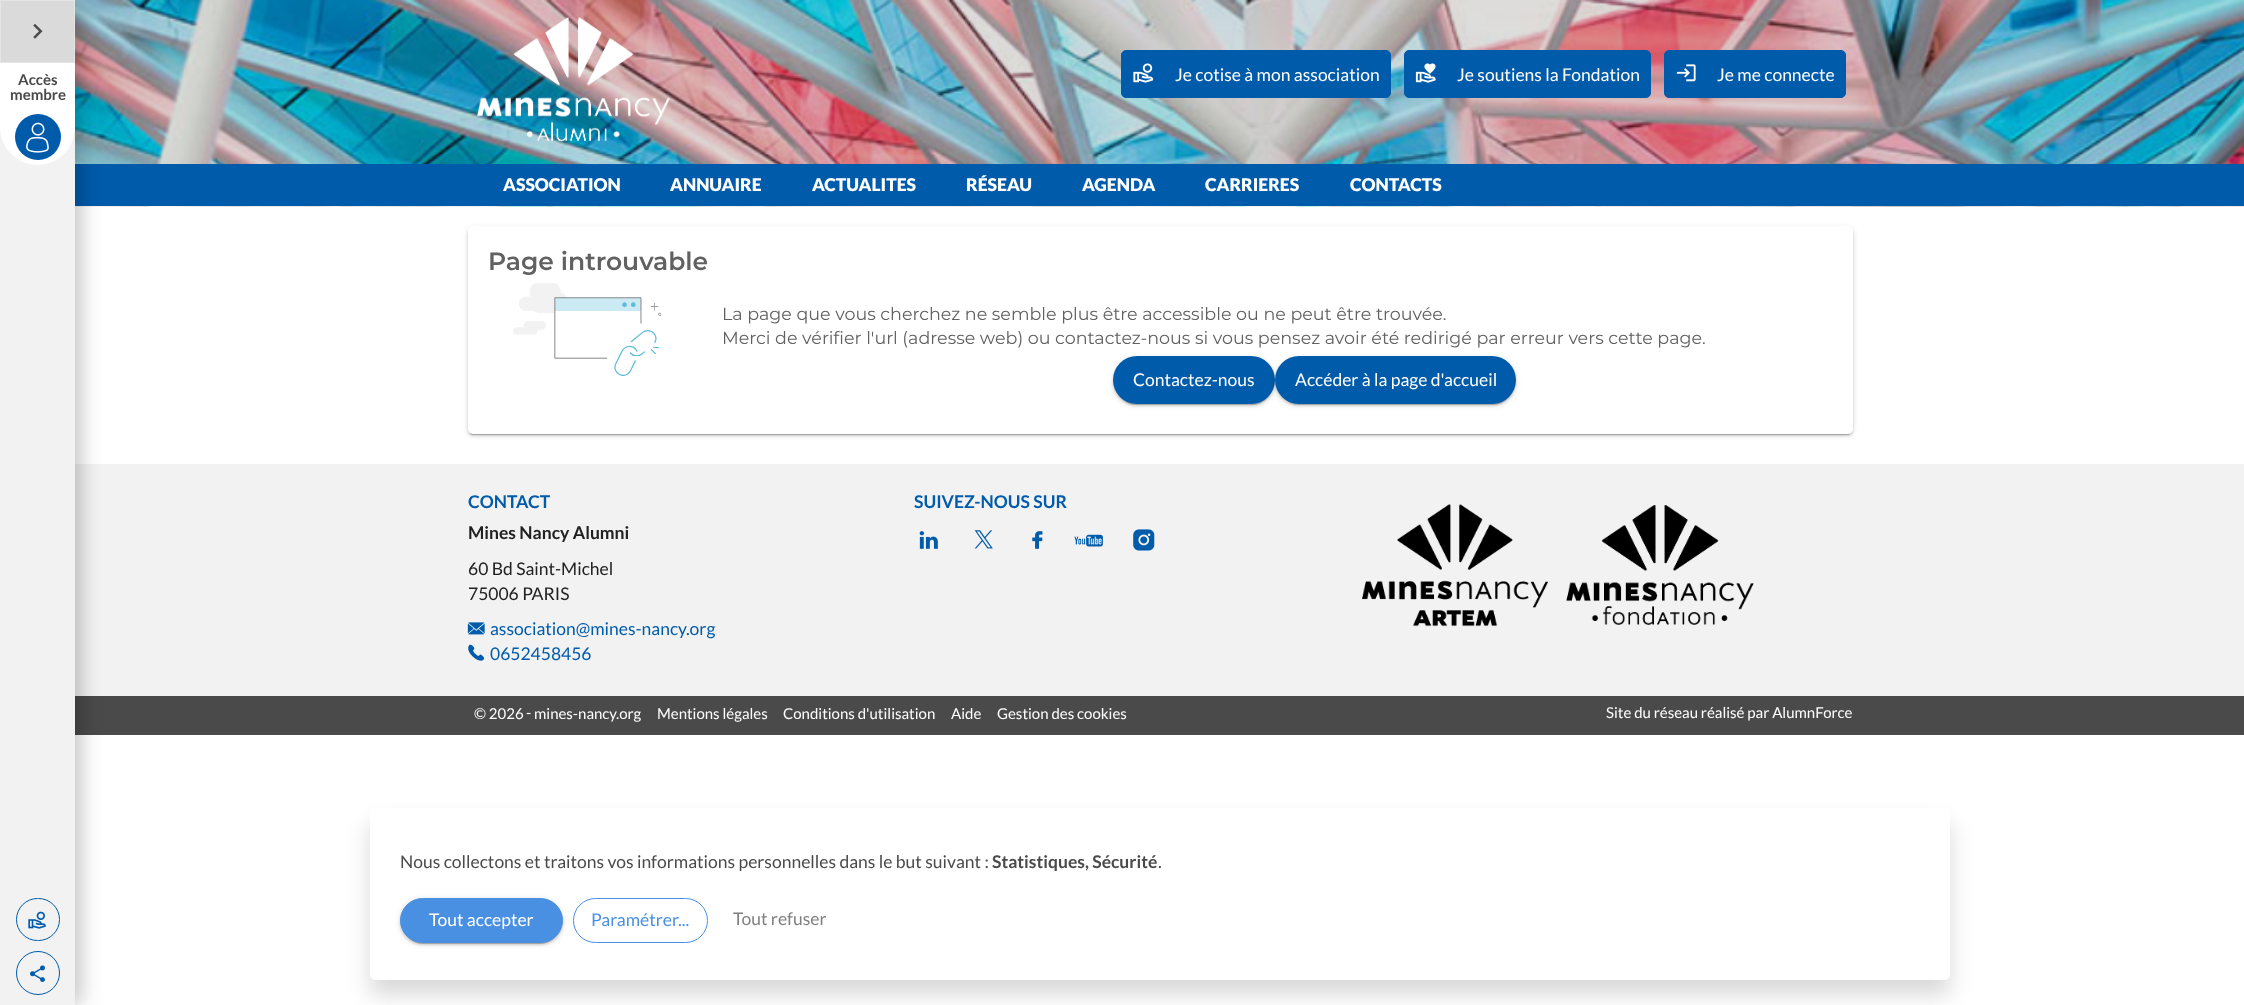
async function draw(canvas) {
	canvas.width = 2244;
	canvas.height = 1005;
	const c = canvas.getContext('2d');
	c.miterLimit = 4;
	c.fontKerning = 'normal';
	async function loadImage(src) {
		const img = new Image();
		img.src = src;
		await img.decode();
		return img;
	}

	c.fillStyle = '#fff';
	c.fillRect(0, 0, 2244, 1005);
	c.drawImage(await loadImage('img5.png'), 75, 0, 2169, 207);
	for (const [x, y, w, h, color] of [
		[75, 164, 2169, 42, '#005bab'],
		[75, 464, 2169, 232, '#f2f2f2'],
		[75, 696, 2169, 39, '#4a4a4a'],
	]) {
		c.fillStyle = color;
		c.fillRect(x, y, w, h);
	}
	c.fillStyle = '#00000040';
	c.filter = 'blur(10.5px)';
	c.beginPath();
	c.rect(5, 0, 75, 1005);
	c.fill();
	c.filter = 'none';
	c.fillStyle = '#f2f2f2';
	c.fillRect(0, 127, 75, 878);
	c.fillStyle = '#dadada';
	c.beginPath();
	c.rect(0.5, 0.5, 74, 62);
	c.fill();
	c.strokeStyle = '#e5e5e5';
	c.stroke();
	c.drawImage(await loadImage('img1.png'), 33, 23, 10, 16);
	c.fillStyle = '#fff';
	c.beginPath();
	c.roundRect(0, 63, 75, 102, [0, 0, 37.5, 37.5]);
	c.fill();
	c.font = 'bold 15px Lato';
	c.fillStyle = '#4a4a4a';
	c.fillText('Accès', 18, 85);
	c.fillText('membre', 10, 100);
	c.fillStyle = '#005bab';
	c.beginPath();
	c.arc(38, 137, 23, 0, 2 * Math.PI);
	c.fill();
	c.drawImage(await loadImage('img2.png'), 26, 122, 23, 31);
	c.beginPath();
	c.roundRect(16.5, 898.5, 43, 42, 21);
	c.strokeStyle = '#005bab';
	c.stroke();
	c.drawImage(await loadImage('img3.png'), 28, 911, 18, 18);
	c.beginPath();
	c.arc(38, 973, 21.5, 0, 2 * Math.PI);
	c.stroke();
	c.drawImage(await loadImage('img4.png'), 30, 965, 15, 17);
	c.drawImage(await loadImage('img6.png'), 477, 17, 193, 125);
	c.beginPath();
	c.roundRect(1121.5, 50.5, 269, 47, 4.5);
	c.fill();
	c.stroke();
	c.drawImage(await loadImage('img7.png'), 1133, 63, 21, 20);
	c.font = '17.5px Lato';
	c.fillStyle = '#fff';
	c.fillText('Je cotise à mon association', 1175, 81);
	c.fillStyle = '#005bab';
	c.beginPath();
	c.roundRect(1404.5, 50.5, 246, 47, 4.5);
	c.fill();
	c.stroke();
	c.drawImage(await loadImage('img8.png'), 1415, 63, 21, 20);
	c.fillStyle = '#fff';
	c.fillText('Je soutiens la Fondation', 1457, 81);
	c.fillStyle = '#005bab';
	c.beginPath();
	c.roundRect(1664.5, 50.5, 181, 47, 4.5);
	c.fill();
	c.stroke();
	c.drawImage(await loadImage('img9.png'), 1676, 64, 20, 18);
	c.fillStyle = '#fff';
	c.fillText('Je me connecte', 1717, 81);
	c.font = '900 17.5px Lato';
	for (const [text, x, y] of [
		['ASSOCIATION', 503, 191],
		['ANNUAIRE', 670, 191],
		['ACTUALITES', 812, 191],
		['RÉSEAU', 966, 191],
		['AGENDA', 1082, 191],
		['CARRIERES', 1205, 191],
		['CONTACTS', 1350, 191],
	]) {
		c.fillText(text, x, y);
	}
	c.fillStyle = '#0000001f';
	c.filter = 'blur(3px)';
	c.beginPath();
	c.roundRect(468, 228, 1385, 207, 5);
	c.fill();
	c.filter = 'none';
	c.fillStyle = '#00000024';
	c.filter = 'blur(1px)';
	c.beginPath();
	c.roundRect(468, 229, 1385, 207, 5);
	c.fill();
	c.filter = 'none';
	c.fillStyle = '#00000033';
	c.filter = 'blur(0.5px)';
	c.beginPath();
	c.roundRect(470, 233, 1380, 202, 2.5);
	c.fill();
	c.filter = 'none';
	c.fillStyle = '#fff';
	c.beginPath();
	c.roundRect(468, 226, 1385, 208, 5);
	c.fill();
	c.font = '600 25px Montserrat';
	c.fillStyle = '#616161';
	c.fillText('Page introuvable', 488, 270);
	c.drawImage(await loadImage('img10.png'), 513, 283, 148, 93);
	c.font = '17.5px Montserrat';
	c.fillText('La page que vous cherchez ne semble plus être accessible ou ne peut être trouvée.', 722, 320);
	c.fillText('Merci de vérifier l\'url (adresse web) ou contactez-nous si vous pensez avoir été redirigé par erreur vers cette page.', 722, 344);
	c.fillStyle = '#0000001f';
	c.filter = 'blur(3px)';
	c.beginPath();
	c.roundRect(1113, 358, 162, 47, 23.5);
	c.fill();
	c.filter = 'none';
	c.fillStyle = '#00000024';
	c.filter = 'blur(1px)';
	c.beginPath();
	c.roundRect(1113, 359, 162, 47, 23.5);
	c.fill();
	c.filter = 'none';
	c.fillStyle = '#00000033';
	c.filter = 'blur(0.5px)';
	c.beginPath();
	c.roundRect(1115, 363, 158, 42, 21);
	c.fill();
	c.filter = 'none';
	c.fillStyle = '#005bab';
	c.beginPath();
	c.roundRect(1113, 356, 162, 48, 24);
	c.fill();
	c.font = '17.5px Lato';
	c.fillStyle = '#fff';
	c.fillText('Contactez-nous', 1133, 386);
	c.fillStyle = '#0000001f';
	c.filter = 'blur(3px)';
	c.beginPath();
	c.roundRect(1275, 358, 241, 47, 23.5);
	c.fill();
	c.filter = 'none';
	c.fillStyle = '#00000024';
	c.filter = 'blur(1px)';
	c.beginPath();
	c.roundRect(1275, 359, 241, 47, 23.5);
	c.fill();
	c.filter = 'none';
	c.fillStyle = '#00000033';
	c.filter = 'blur(0.5px)';
	c.beginPath();
	c.roundRect(1278, 363, 236, 42, 21);
	c.fill();
	c.filter = 'none';
	c.fillStyle = '#005bab';
	c.beginPath();
	c.roundRect(1275, 356, 241, 48, 24);
	c.fill();
	c.fillStyle = '#fff';
	c.fillText('Accéder à la page d\'accueil', 1295, 386);
	c.font = 'bold 17.5px Lato';
	c.fillStyle = '#005bab';
	c.fillText('CONTACT', 468, 508);
	c.fillStyle = '#212121';
	c.fillText('Mines Nancy Alumni', 468, 539);
	c.font = '17.5px Lato';
	c.fillText('60 Bd Saint-Michel', 468, 575);
	c.fillText('75006 PARIS', 468, 600);
	c.drawImage(await loadImage('img11.png'), 467, 622, 18, 13);
	c.fillStyle = '#005bab';
	c.fillText('association@mines-nancy.org', 490, 635);
	c.drawImage(await loadImage('img12.png'), 468, 644, 17, 17);
	c.fillText('0652458456', 490, 660);
	c.font = 'bold 17.5px Lato';
	c.fillText('SUIVEZ-NOUS SUR', 914, 508);
	c.drawImage(await loadImage('img13.png'), 919, 531, 19, 18);
	c.drawImage(await loadImage('img14.png'), 974, 530, 19, 19);
	c.drawImage(await loadImage('img15.png'), 1032, 531, 11, 18);
	c.drawImage(await loadImage('img16.png'), 1074, 534, 29, 13);
	c.drawImage(await loadImage('img17.png'), 1133, 529, 22, 22);
	c.drawImage(await loadImage('img18.png'), 1362, 504, 186, 123);
	c.drawImage(await loadImage('img19.png'), 1566, 505, 188, 120);
	c.font = '15px Lato';
	c.fillStyle = '#fff';
	for (const [text, x, y] of [
		['© 2026', 474, 719],
		['-', 526, 718],
		['mines-nancy.org', 534, 719],
		['Mentions légales', 657, 719],
		['Conditions d\'utilisation', 783, 719],
		['Aide', 951, 719],
		['Gestion des cookies', 997, 719],
		['Site du réseau réalisé par AlumnForce', 1606, 718],
	]) {
		c.fillText(text, x, y);
	}
	c.fillStyle = '#00000026';
	c.filter = 'blur(10.5px)';
	c.beginPath();
	c.roundRect(370, 823, 1580, 172, 5);
	c.fill();
	c.filter = 'none';
	c.fillStyle = '#fff';
	c.beginPath();
	c.roundRect(370, 808, 1580, 172, 5);
	c.fill();
	c.font = '17.5px Lato';
	c.fillStyle = '#4a4a4a';
	c.fillText('Nous collectons et traitons vos informations personnelles dans le but suivant :', 400, 868);
	c.font = 'bold 17.5px Lato';
	c.fillText('Statistiques, Sécurité', 992, 868);
	c.font = '17.5px Lato';
	c.fillText('.', 1158, 868);
	c.fillStyle = '#0000001f';
	c.filter = 'blur(3px)';
	c.beginPath();
	c.roundRect(400, 899, 163, 45, 22.5);
	c.fill();
	c.filter = 'none';
	c.fillStyle = '#00000024';
	c.filter = 'blur(1px)';
	c.beginPath();
	c.roundRect(400, 900, 163, 45, 22.5);
	c.fill();
	c.filter = 'none';
	c.fillStyle = '#00000033';
	c.filter = 'blur(0.5px)';
	c.beginPath();
	c.roundRect(403, 904, 157, 40, 20);
	c.fill();
	c.filter = 'none';
	c.fillStyle = '#4990e2';
	c.beginPath();
	c.roundRect(400.5, 898.5, 162, 44, 22);
	c.fill();
	c.strokeStyle = '#4990e2';
	c.stroke();
	c.fillStyle = '#fff';
	c.fillText('Tout accepter', 429, 926);
	c.beginPath();
	c.roundRect(573.5, 898.5, 134, 44, 22);
	c.stroke();
	c.fillStyle = '#4990e2';
	c.fillText('Paramétrer', 591, 926);
	c.fillText('...', 678, 926);
	c.fillStyle = '#808080';
	c.fillText('Tout refuser', 733, 925);
}

draw(document.querySelector('canvas'));
